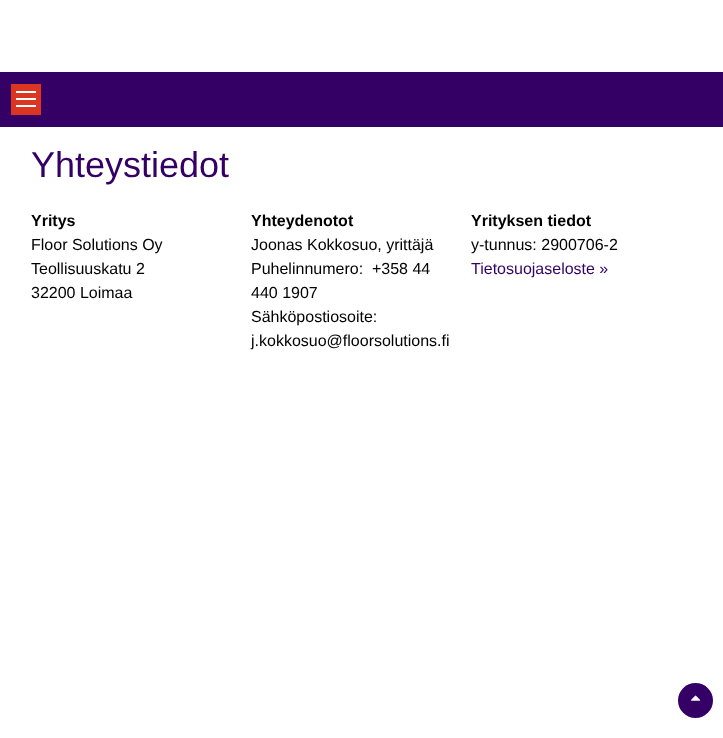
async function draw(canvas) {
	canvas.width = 723;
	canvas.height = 738;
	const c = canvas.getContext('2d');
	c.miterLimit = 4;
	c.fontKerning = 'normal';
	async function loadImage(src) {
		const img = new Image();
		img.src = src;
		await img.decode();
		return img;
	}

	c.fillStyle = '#fff';
	c.fillRect(0, 0, 723, 738);
	for (const [x, y, w, h, color] of [
		[0, 72, 723, 55, '#340066'],
		[11, 84, 30, 31, '#dc3522'],
		[16, 91, 20, 2, '#fff'],
		[16, 98, 20, 2, '#fff'],
		[16, 105, 20, 2, '#fff'],
	]) {
		c.fillStyle = color;
		c.fillRect(x, y, w, h);
	}
	c.font = '36px Liberation Sans';
	c.fillStyle = '#340066';
	c.fillText('Yhteystiedot', 31, 177);
	c.font = 'bold 16px Liberation Sans';
	c.fillStyle = '#000';
	c.fillText('Yritys', 31, 226);
	c.font = '16px Liberation Sans';
	for (const [text, x, y] of [
		['Floor Solutions Oy', 31, 250],
		['Teollisuuskatu 2', 31, 274],
		['32200 Loimaa', 31, 298],
	]) {
		c.fillText(text, x, y);
	}
	c.font = 'bold 16px Liberation Sans';
	c.fillText('Yhteydenotot', 251, 226);
	c.font = '16px Liberation Sans';
	for (const [text, x, y] of [
		['Joonas Kokkosuo, yrittäjä', 251, 250],
		['Puhelinnumero:  +358 44', 251, 274],
		['440 1907', 251, 298],
		['Sähköpostiosoite:', 251, 322],
		['j.kokkosuo@floorsolutions.fi', 251, 346],
	]) {
		c.fillText(text, x, y);
	}
	c.font = 'bold 16px Liberation Sans';
	c.fillText('Yrityksen tiedot', 471, 226);
	c.font = '16px Liberation Sans';
	c.fillText('y-tunnus: 2900706-2', 471, 250);
	c.fillStyle = '#340066';
	c.fillText('Tietosuojaseloste »', 471, 274);
	c.beginPath();
	c.arc(695.5, 700.5, 17.5, 0, 2 * Math.PI);
	c.fill();
	c.drawImage(await loadImage('img1.png'), 691, 695, 10, 6);
}

draw(document.querySelector('canvas'));
